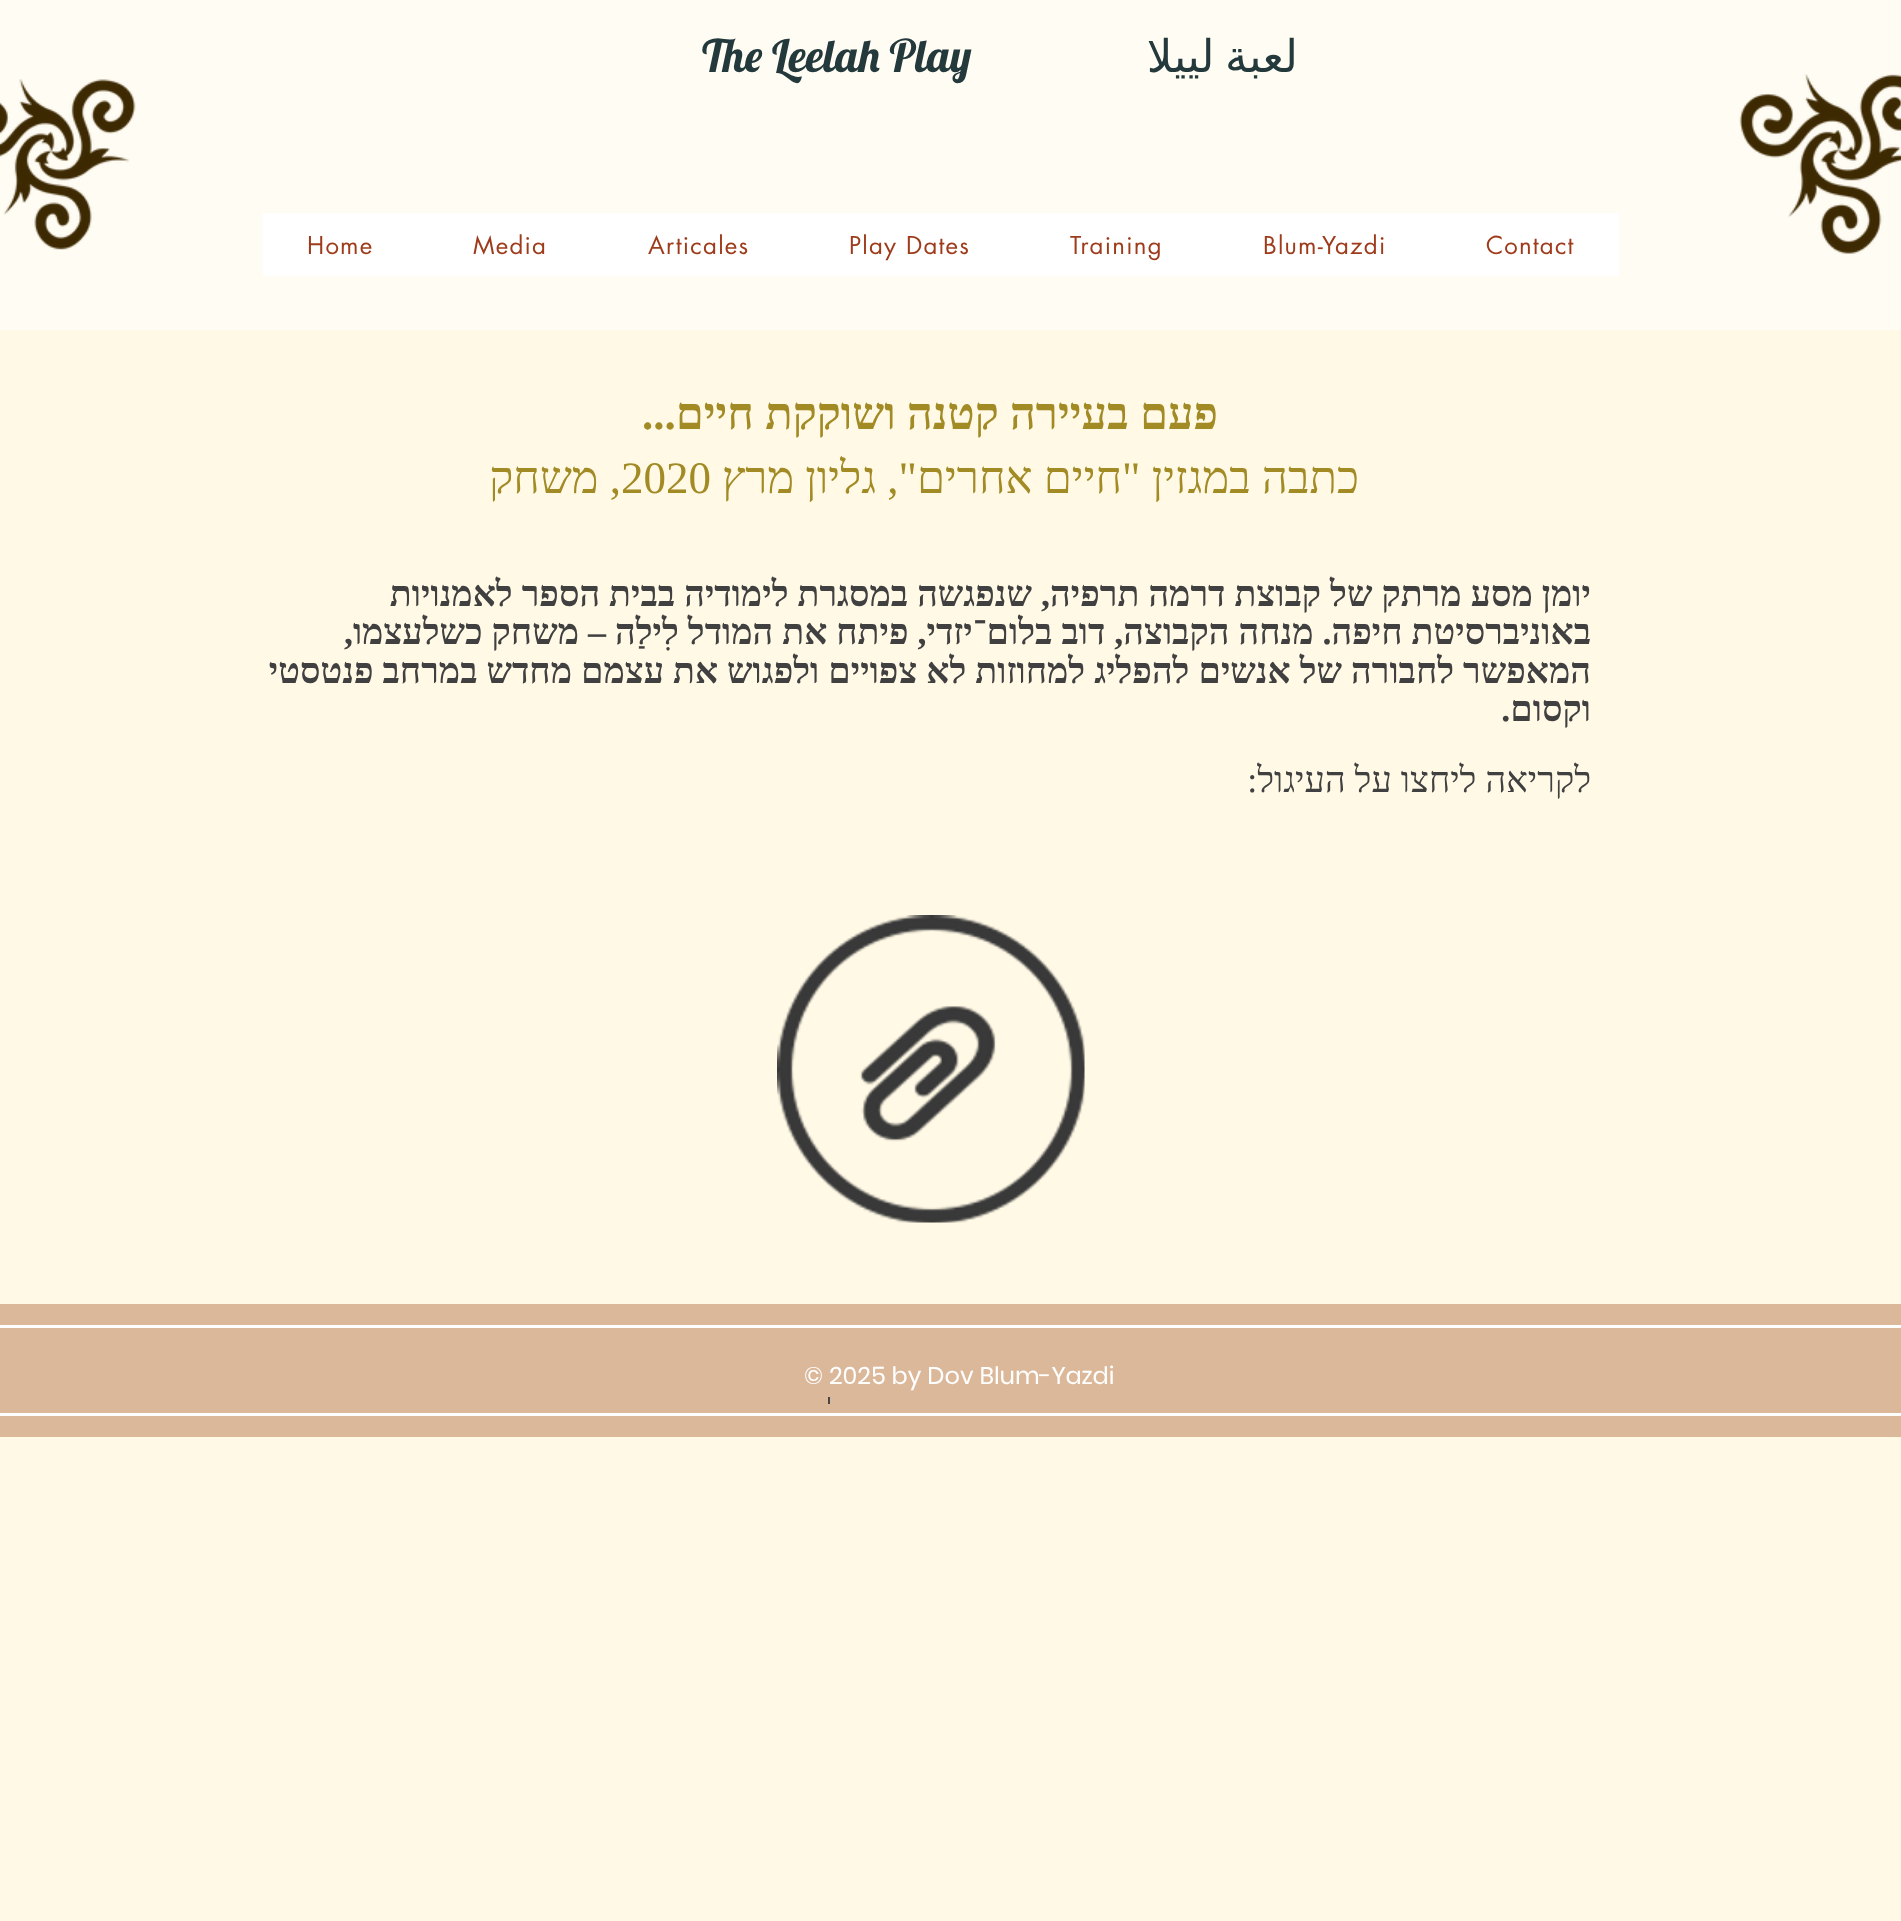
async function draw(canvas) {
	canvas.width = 1901;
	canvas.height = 1921;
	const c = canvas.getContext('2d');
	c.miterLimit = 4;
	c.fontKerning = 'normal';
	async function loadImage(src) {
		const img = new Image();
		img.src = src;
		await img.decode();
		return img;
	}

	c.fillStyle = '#fff9e6';
	c.fillRect(0, 0, 1901, 1921);
	c.fillStyle = '#fffcf3';
	c.fillRect(0, 0, 1901, 330);
	c.wordSpacing = '-4px';
	c.direction = 'rtl';
	c.font = '45px DejaVu Sans';
	c.fillStyle = '#23393c';
	c.fillText('لعبة لييلا', 1298, 72);
	c.wordSpacing = '0px';
	c.direction = 'ltr';
	c.font = '45px Lobster';
	c.fillText('The Leelah Play', 702, 72);
	c.drawImage(await loadImage('img1.png'), 1739, 74, 162, 180);
	c.fillStyle = '#fff';
	c.fillRect(263, 213, 1356, 63);
	c.letterSpacing = '1.25px';
	c.font = '24px futura';
	c.fillStyle = '#9e3b1b';
	for (const [text, x, y] of [
		['Contact', 1486, 254],
		['Blum-Yazdi', 1263, 254],
		['Training', 1070, 254],
		['Play Dates', 849, 254],
		['Articales', 648, 254],
		['Media', 473, 254],
		['Home', 307, 254],
	]) {
		c.fillText(text, x, y);
	}
	c.drawImage(await loadImage('img2.png'), 0, 79, 136, 171);
	c.letterSpacing = '0px';
	c.direction = 'rtl';
	c.font = 'bold 45px Liberation Serif';
	c.fillStyle = '#a28a24';
	c.fillText('פעם בעיירה קטנה ושוקקת חיים...', 1218, 429);
	c.font = '45px Liberation Serif';
	c.fillText('כתבה במגזין "חיים אחרים", גליון מרץ', 1359, 493);
	c.direction = 'ltr';
	c.fillText('2020', 621, 493);
	c.direction = 'rtl';
	c.fillText(', משחק', 621, 493);
	c.font = 'bold 36px Liberation Serif';
	c.fillStyle = '#404041';
	for (const [text, x, y] of [
		['יומן מסע מרתק של קבוצת דרמה תרפיה, שנפגשה במסגרת לימודיה בבית הספר לאמנויות', 1591, 606],
		['באוניברסיטת חיפה. מנחה הקבוצה, דוב בלום־יזדי, פיתח את המודל לִילַה – משחק כשלעצמו,', 1591, 644],
		['המאפשר לחבורה של אנשים להפליג למחוזות לא צפויים ולפגוש את עצמם מחדש במרחב פנטסטי', 1591, 683],
		['וקסום.', 1591, 721],
	]) {
		c.fillText(text, x, y);
	}
	c.font = '36px Liberation Serif';
	c.fillText('לקריאה ליחצו על העיגול:', 1591, 792);
	c.drawImage(await loadImage('img3.png'), 777, 915, 308, 308);
	for (const [x, y, w, h, color] of [
		[0, 1304, 1901, 133, '#dbb89a'],
		[0, 1325, 1901, 3, '#fff'],
		[0, 1413, 1901, 3, '#fff'],
	]) {
		c.fillStyle = color;
		c.fillRect(x, y, w, h);
	}
	c.direction = 'ltr';
	c.font = '24px Poppins';
	c.fillText('© 2025 by Dov Blum-Yazdi', 804, 1384);
	c.fillStyle = '#474747';
	c.fillRect(828, 1397, 2, 7);
}

draw(document.querySelector('canvas'));
